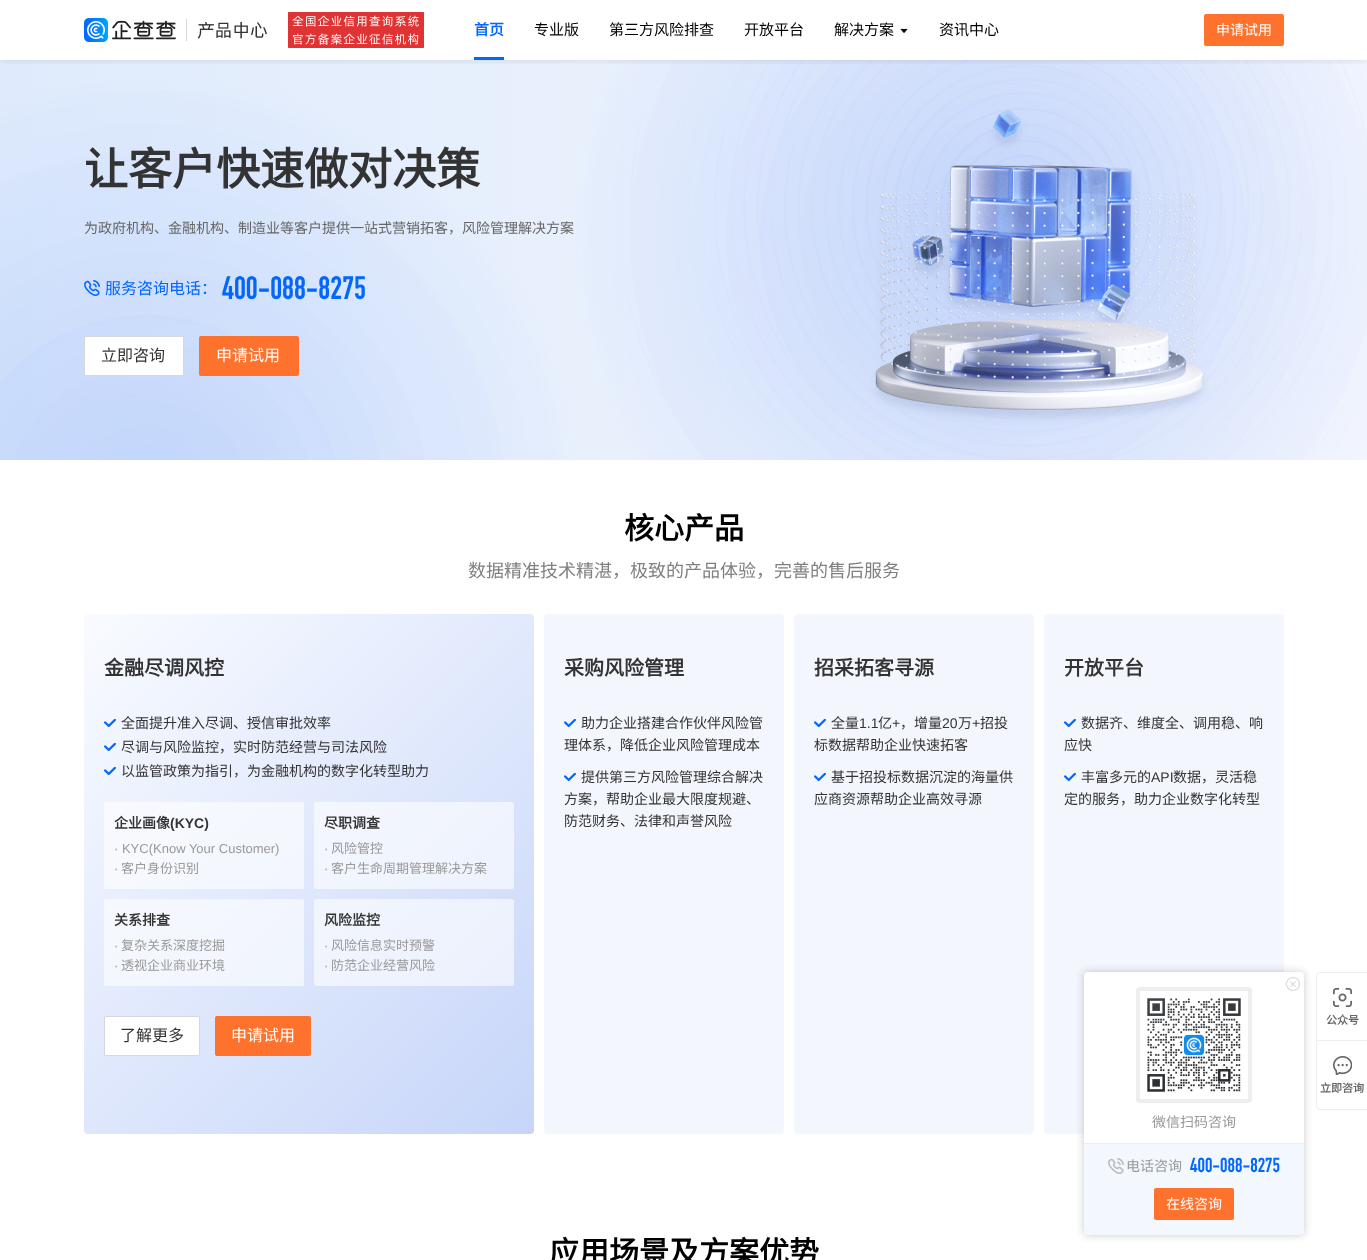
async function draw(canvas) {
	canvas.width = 1367;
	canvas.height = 1260;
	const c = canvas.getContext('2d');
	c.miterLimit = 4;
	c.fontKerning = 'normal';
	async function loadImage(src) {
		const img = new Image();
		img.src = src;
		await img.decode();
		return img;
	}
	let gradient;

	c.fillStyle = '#fff';
	c.fillRect(0, 0, 1367, 1260);
	gradient = c.createLinearGradient(0, 260, 1367, 260);
	gradient.addColorStop(0, '#dfebfc');
	gradient.addColorStop(1, '#f5f7fd');
	c.fillStyle = gradient;
	c.fillRect(0, 60, 1367, 400);
	c.drawImage(await loadImage('img3.png'), 0, 60, 1367, 400);
	c.save();
	c.beginPath();
	c.rect(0, 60, 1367, 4);
	c.clip();
	c.fillStyle = '#0000001a';
	c.filter = 'blur(5px)';
	c.beginPath();
	c.rect(0, 0, 1367, 60);
	c.fill();
	c.filter = 'none';
	c.restore();
	c.drawImage(await loadImage('img1.png'), 84, 12, 340, 36);
	c.font = 'bold 15px Noto Sans CJK SC';
	c.fillStyle = '#0266ff';
	c.fillText('首页', 474, 35);
	c.fillRect(474, 57, 30, 3);
	c.font = '15px Noto Sans CJK SC';
	c.fillStyle = '#000';
	for (const [text, x, y] of [
		['专业版', 534, 35],
		['第三方风险排查', 609, 35],
		['开放平台', 744, 35],
		['解决方案', 834, 35],
	]) {
		c.fillText(text, x, y);
	}
	c.drawImage(await loadImage('img2.png'), 900, 28, 8, 5);
	c.fillText('资讯中心', 939, 35);
	c.fillStyle = '#ff722d';
	c.beginPath();
	c.roundRect(1204, 14, 80, 32, 2);
	c.fill();
	c.font = '14px Noto Sans CJK SC';
	c.fillStyle = '#fff';
	c.fillText('申请试用', 1216, 35);
	c.font = 'bold 44px Noto Sans CJK SC';
	c.fillStyle = '#333';
	c.fillText('让客户快速做对决策', 84, 185);
	c.font = '14px Noto Sans CJK SC';
	c.fillStyle = '#666';
	c.fillText('为政府机构、金融机构、制造业等客户提供一站式营销拓客，风险管理解决方案', 84, 233);
	c.drawImage(await loadImage('img4.png'), 84, 280, 16, 16);
	c.font = '16px Noto Sans CJK SC';
	c.fillStyle = '#0266ff';
	c.fillText('服务咨询电话：', 105, 294);
	c.font = 'bold 32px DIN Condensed';
	c.fillText('400-088-8275', 222, 299);
	c.fillStyle = '#fff';
	c.beginPath();
	c.roundRect(84.5, 336.5, 99, 39, 1.5);
	c.fill();
	c.strokeStyle = '#d8d8d8';
	c.stroke();
	c.font = '16px Noto Sans CJK SC';
	c.fillStyle = '#333';
	c.fillText('立即咨询', 101, 361);
	c.fillStyle = '#ff722d';
	c.beginPath();
	c.roundRect(199, 336, 100, 40, 2);
	c.fill();
	c.fillStyle = '#fff';
	c.fillText('申请试用', 216, 361);
	c.font = 'bold 30px Noto Sans CJK SC';
	c.fillStyle = '#000';
	c.fillText('核心产品', 624, 539);
	c.font = '18px Noto Sans CJK SC';
	c.fillStyle = '#808080';
	c.fillText('数据精准技术精湛，极致的产品体验，完善的售后服务', 468, 577);
	gradient = c.createLinearGradient(67, 632, 552, 1117);
	gradient.addColorStop(0, '#f9fbff');
	gradient.addColorStop(1, '#c6d5f9');
	c.fillStyle = gradient;
	c.beginPath();
	c.roundRect(84, 614, 450, 520, 4);
	c.fill();
	c.font = 'bold 20px Noto Sans CJK SC';
	c.fillStyle = '#333';
	c.fillText('金融尽调风控', 104, 675);
	c.drawImage(await loadImage('img5.png'), 104, 719, 12, 8);
	c.font = '14px Noto Sans CJK SC';
	c.fillText('全面提升准入尽调、授信审批效率', 121, 728);
	c.drawImage(await loadImage('img6.png'), 104, 743, 12, 8);
	c.fillText('尽调与风险监控，实时防范经营与司法风险', 121, 752);
	c.drawImage(await loadImage('img7.png'), 104, 767, 12, 8);
	c.fillText('以监管政策为指引，为金融机构的数字化转型助力', 121, 776);
	c.fillStyle = '#ffffff99';
	c.beginPath();
	c.roundRect(104, 802, 200, 87, 2);
	c.fill();
	c.font = 'bold 14px Noto Sans CJK SC';
	c.fillStyle = '#333';
	c.fillText('企业画像', 114, 828);
	c.font = 'bold 14px Liberation Sans';
	c.fillText('(KYC)', 170, 828);
	c.font = '13px Liberation Sans';
	c.fillStyle = '#999';
	c.fillText('· KYC(Know Your Customer)', 114, 853);
	c.fillText('·', 114, 873);
	c.font = '13px Noto Sans CJK SC';
	c.fillText('客户身份识别', 121, 873);
	c.fillStyle = '#ffffff99';
	c.beginPath();
	c.roundRect(314, 802, 200, 87, 2);
	c.fill();
	c.font = 'bold 14px Noto Sans CJK SC';
	c.fillStyle = '#333';
	c.fillText('尽职调查', 324, 828);
	c.font = '13px Liberation Sans';
	c.fillStyle = '#999';
	c.fillText('·', 324, 853);
	c.font = '13px Noto Sans CJK SC';
	c.fillText('风险管控', 331, 853);
	c.font = '13px Liberation Sans';
	c.fillText('·', 324, 873);
	c.font = '13px Noto Sans CJK SC';
	c.fillText('客户生命周期管理解决方案', 331, 873);
	c.fillStyle = '#ffffff99';
	c.beginPath();
	c.roundRect(104, 899, 200, 87, 2);
	c.fill();
	c.font = 'bold 14px Noto Sans CJK SC';
	c.fillStyle = '#333';
	c.fillText('关系排查', 114, 925);
	c.font = '13px Liberation Sans';
	c.fillStyle = '#999';
	c.fillText('·', 114, 950);
	c.font = '13px Noto Sans CJK SC';
	c.fillText('复杂关系深度挖掘', 121, 950);
	c.font = '13px Liberation Sans';
	c.fillText('·', 114, 970);
	c.font = '13px Noto Sans CJK SC';
	c.fillText('透视企业商业环境', 121, 970);
	c.fillStyle = '#ffffff99';
	c.beginPath();
	c.roundRect(314, 899, 200, 87, 2);
	c.fill();
	c.font = 'bold 14px Noto Sans CJK SC';
	c.fillStyle = '#333';
	c.fillText('风险监控', 324, 925);
	c.font = '13px Liberation Sans';
	c.fillStyle = '#999';
	c.fillText('·', 324, 950);
	c.font = '13px Noto Sans CJK SC';
	c.fillText('风险信息实时预警', 331, 950);
	c.font = '13px Liberation Sans';
	c.fillText('·', 324, 970);
	c.font = '13px Noto Sans CJK SC';
	c.fillText('防范企业经营风险', 331, 970);
	c.fillStyle = '#fff';
	c.beginPath();
	c.roundRect(104.5, 1016.5, 95, 39, 1.5);
	c.fill();
	c.stroke();
	c.font = '16px Noto Sans CJK SC';
	c.fillStyle = '#333';
	c.fillText('了解更多', 120, 1041);
	c.fillStyle = '#ff722d';
	c.beginPath();
	c.roundRect(215, 1016, 96, 40, 2);
	c.fill();
	c.fillStyle = '#fff';
	c.fillText('申请试用', 231, 1041);
	c.fillStyle = '#f3f6fd';
	c.beginPath();
	c.roundRect(544, 614, 240, 520, 4);
	c.fill();
	c.font = 'bold 20px Noto Sans CJK SC';
	c.fillStyle = '#333';
	c.fillText('采购风险管理', 564, 675);
	c.drawImage(await loadImage('img8.png'), 564, 719, 12, 8);
	c.font = '14px Noto Sans CJK SC';
	c.fillText('助力企业搭建合作伙伴风险管', 581, 728);
	c.fillText('理体系，降低企业风险管理成本', 564, 750);
	c.drawImage(await loadImage('img8.png'), 564, 773, 12, 8);
	for (const [text, x, y] of [
		['提供第三方风险管理综合解决', 581, 782],
		['方案，帮助企业最大限度规避、', 564, 804],
		['防范财务、法律和声誉风险', 564, 826],
	]) {
		c.fillText(text, x, y);
	}
	c.fillStyle = '#f3f6fd';
	c.beginPath();
	c.roundRect(794, 614, 240, 520, 4);
	c.fill();
	c.font = 'bold 20px Noto Sans CJK SC';
	c.fillStyle = '#333';
	c.fillText('招采拓客寻源', 814, 675);
	c.drawImage(await loadImage('img8.png'), 814, 719, 12, 8);
	c.font = '14px Noto Sans CJK SC';
	c.fillText('全量', 831, 728);
	c.font = '14px Liberation Sans';
	c.fillText('1.1', 859, 728);
	c.font = '14px Noto Sans CJK SC';
	c.fillText('亿', 878, 728);
	c.font = '14px Liberation Sans';
	c.fillText('+', 892, 728);
	c.font = '14px Noto Sans CJK SC';
	c.fillText('，增量', 900, 728);
	c.font = '14px Liberation Sans';
	c.fillText('20', 942, 728);
	c.font = '14px Noto Sans CJK SC';
	c.fillText('万', 958, 728);
	c.font = '14px Liberation Sans';
	c.fillText('+', 972, 728);
	c.font = '14px Noto Sans CJK SC';
	c.fillText('招投', 980, 728);
	c.fillText('标数据帮助企业快速拓客', 814, 750);
	c.drawImage(await loadImage('img8.png'), 814, 773, 12, 8);
	c.fillText('基于招投标数据沉淀的海量供', 831, 782);
	c.fillText('应商资源帮助企业高效寻源', 814, 804);
	c.fillStyle = '#f3f6fd';
	c.beginPath();
	c.roundRect(1044, 614, 240, 520, 4);
	c.fill();
	c.font = 'bold 20px Noto Sans CJK SC';
	c.fillStyle = '#333';
	c.fillText('开放平台', 1064, 675);
	c.drawImage(await loadImage('img8.png'), 1064, 719, 12, 8);
	c.font = '14px Noto Sans CJK SC';
	c.fillText('数据齐、维度全、调用稳、响', 1081, 728);
	c.fillText('应快', 1064, 750);
	c.drawImage(await loadImage('img8.png'), 1064, 773, 12, 8);
	c.fillText('丰富多元的', 1081, 782);
	c.font = '14px Liberation Sans';
	c.fillText('API', 1151, 782);
	c.font = '14px Noto Sans CJK SC';
	c.fillText('数据，灵活稳', 1173, 782);
	c.fillText('定的服务，助力企业数字化转型', 1064, 804);
	c.font = 'bold 30px Noto Sans CJK SC';
	c.fillStyle = '#000';
	c.fillText('应用场景及方案优势', 549, 1263);
	c.fillStyle = '#eee';
	c.beginPath();
	c.moveTo(1320, 972);
	c.lineTo(1367, 972);
	c.lineTo(1367, 1041);
	c.lineTo(1316, 1041);
	c.lineTo(1316, 976);
	c.bezierCurveTo(1316, 974, 1318, 972, 1320, 972);
	c.closePath();
	c.moveTo(1320, 973);
	c.lineTo(1367, 973);
	c.lineTo(1367, 1041);
	c.lineTo(1317, 1041);
	c.lineTo(1317, 976);
	c.bezierCurveTo(1317, 974, 1318, 973, 1320, 973);
	c.closePath();
	c.fill('evenodd');
	c.fillRect(1317, 1040, 50, 1);
	c.drawImage(await loadImage('img9.png'), 1333, 988, 19, 19);
	c.font = 'bold 11px Noto Sans CJK SC';
	c.fillStyle = '#666';
	c.fillText('公众号', 1326, 1024);
	c.fillStyle = '#eee';
	c.beginPath();
	c.moveTo(1316, 1041);
	c.lineTo(1367, 1041);
	c.lineTo(1367, 1110);
	c.lineTo(1320, 1110);
	c.bezierCurveTo(1318, 1110, 1316, 1108, 1316, 1106);
	c.closePath();
	c.moveTo(1317, 1041);
	c.lineTo(1367, 1041);
	c.lineTo(1367, 1109);
	c.lineTo(1320, 1109);
	c.bezierCurveTo(1318, 1109, 1317, 1108, 1317, 1106);
	c.closePath();
	c.fill('evenodd');
	c.drawImage(await loadImage('img10.png'), 1333, 1056, 19, 19);
	c.fillStyle = '#666';
	c.fillText('立即咨询', 1320, 1092);
	c.fillStyle = '#0000001a';
	c.filter = 'blur(4px)';
	c.beginPath();
	c.rect(1084, 972, 220, 263);
	c.fill();
	c.filter = 'none';
	c.filter = 'blur(4px)';
	c.beginPath();
	c.roundRect(1084, 972, 220, 263, 4);
	c.fill();
	c.filter = 'none';
	c.fillStyle = '#fff';
	c.beginPath();
	c.roundRect(1084, 972, 220, 171, [4, 4, 0, 0]);
	c.fill();
	c.drawImage(await loadImage('img11.png'), 1286, 977, 14, 14);
	c.beginPath();
	c.roundRect(1138, 989, 112, 112, 2);
	c.strokeStyle = '#eee';
	c.lineWidth = 4;
	c.stroke();
	c.drawImage(await loadImage('img12.png'), 1147, 998, 94, 94);
	c.font = '14px Noto Sans CJK SC';
	c.fillStyle = '#999';
	c.fillText('微信扫码咨询', 1152, 1127);
	c.fillStyle = '#f2f8fe';
	c.beginPath();
	c.roundRect(1084, 1143, 220, 92, [0, 0, 4, 4]);
	c.fill();
	c.fillStyle = '#eee';
	c.fillRect(1084, 1143, 220, 1);
	c.drawImage(await loadImage('img13.png'), 1108, 1158, 16, 16);
	c.fillStyle = '#999';
	c.fillText('电话咨询', 1126, 1171);
	c.font = 'bold 20px DIN Condensed';
	c.fillStyle = '#0266ff';
	c.fillText('400-088-8275', 1190, 1172);
	c.fillStyle = '#ff722d';
	c.beginPath();
	c.roundRect(1154, 1188, 80, 32, 2);
	c.fill();
	c.font = '14px Noto Sans CJK SC';
	c.fillStyle = '#fff';
	c.fillText('在线咨询', 1166, 1209);
}

draw(document.querySelector('canvas'));
